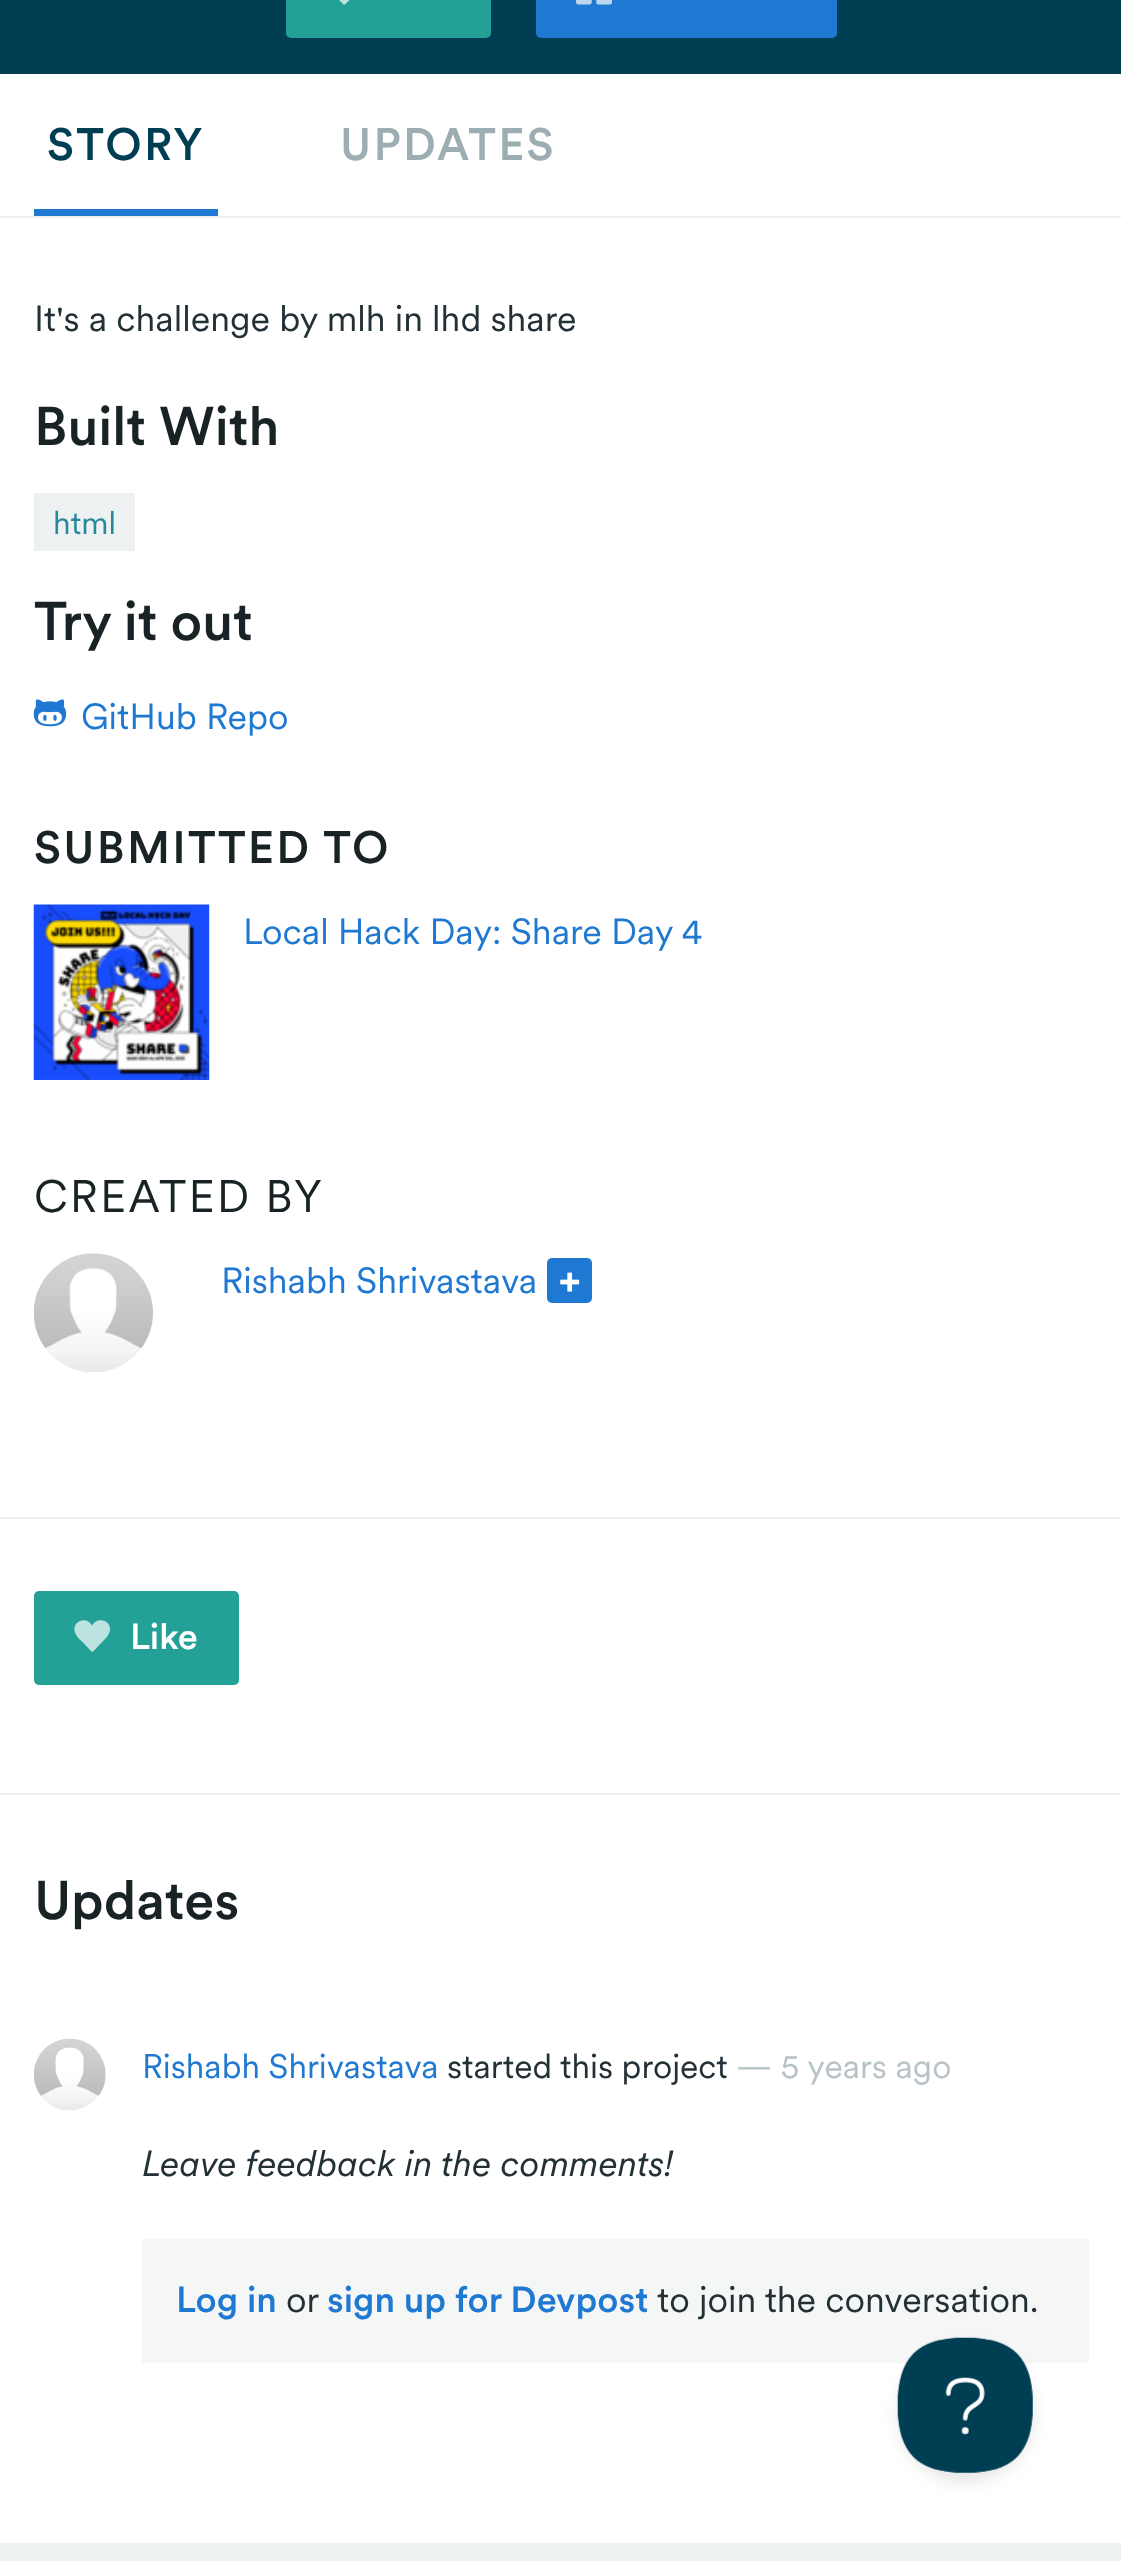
async function draw(canvas) {
	canvas.width = 1121;
	canvas.height = 2561;
	const c = canvas.getContext('2d');
	c.miterLimit = 4;
	c.fontKerning = 'normal';
	async function loadImage(src) {
		const img = new Image();
		img.src = src;
		await img.decode();
		return img;
	}

	c.fillStyle = '#fff';
	c.fillRect(0, 0, 1121, 2561);
	c.fillStyle = '#003e54';
	c.fillRect(0, 0, 1121, 74);
	c.fillStyle = '#23a196';
	c.beginPath();
	c.roundRect(286, -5, 205, 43, 5);
	c.fill();
	c.fillStyle = '#bde3e0';
	c.beginPath();
	c.moveTo(357, -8);
	c.lineTo(347, 2.5);
	c.bezierCurveTo(344, 5.5, 344.5, 5.5, 341.5, 2.5);
	c.lineTo(335.5, -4);
	c.bezierCurveTo(332.5, -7, 329, -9.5, 327.5, -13.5);
	c.bezierCurveTo(322, -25, 338.5, -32.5, 344, -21.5);
	c.bezierCurveTo(351, -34, 371.5, -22.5, 357, -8);
	c.closePath();
	c.fill();
	c.fillStyle = '#1f78d1';
	c.beginPath();
	c.roundRect(536, -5, 301, 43, 5);
	c.fill();
	c.drawImage(await loadImage('img1.png'), 576, 0, 36, 5);
	c.fillStyle = '#edf1f2';
	c.fillRect(0, 216, 1121, 2);
	c.fillStyle = '#1f78d1';
	c.fillRect(34, 209, 184, 7);
	c.letterSpacing = '2.25px';
	c.font = '500 45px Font';
	c.fillStyle = '#003e54';
	c.fillText('STORY', 47, 160);
	c.fillStyle = '#9caeb2';
	c.fillText('UPDATES', 340, 160);
	c.letterSpacing = '0px';
	c.font = '36px Font';
	c.fillStyle = '#233136';
	c.fillText('It\'s a challenge by mlh in lhd share', 34, 331);
	c.font = '500 54px Font';
	c.fillStyle = '#192325';
	c.fillText('Built With', 34, 445);
	c.fillStyle = '#edf1f2';
	c.fillRect(34, 493, 101, 58);
	c.font = '32px Font';
	c.fillStyle = '#268899';
	c.fillText('html', 53, 534);
	c.font = '500 54px Font';
	c.fillStyle = '#192325';
	c.fillText('Try it out', 34, 640);
	c.drawImage(await loadImage('img2.png'), 33, 699, 34, 28);
	c.font = '36px Font';
	c.fillStyle = '#1f78d1';
	c.fillText('GitHub Repo', 81, 729);
	c.letterSpacing = '2.25px';
	c.font = '500 45px Font';
	c.fillStyle = '#192325';
	c.fillText('SUBMITTED TO', 34, 863);
	c.drawImage(await loadImage('img3.png'), 33, 904, 177, 176);
	c.letterSpacing = '0px';
	c.font = '36px Font';
	c.fillStyle = '#1f78d1';
	c.fillText('Local Hack Day: Share Day 4', 243, 944);
	c.letterSpacing = '2.25px';
	c.font = '45px Font';
	c.fillStyle = '#192325';
	c.fillText('CREATED BY', 34, 1212);
	c.drawImage(await loadImage('img4.png'), 34, 1253, 119, 120);
	c.letterSpacing = '0px';
	c.font = '36px Font';
	c.fillStyle = '#1f78d1';
	c.fillText('Rishabh Shrivastava', 221, 1293);
	c.beginPath();
	c.roundRect(547, 1258, 45, 45, 5);
	c.fill();
	c.drawImage(await loadImage('img5.png'), 560, 1272, 20, 20);
	c.fillStyle = '#edf1f2';
	c.fillRect(0, 1517, 1121, 2);
	c.fillRect(0, 1793, 1121, 2);
	c.fillStyle = '#23a196';
	c.beginPath();
	c.roundRect(34, 1591, 205, 94, 5);
	c.fill();
	c.fillStyle = '#bde3e0';
	c.beginPath();
	c.moveTo(105, 1639);
	c.lineTo(95, 1649.5);
	c.bezierCurveTo(92, 1652.5, 92.5, 1652.5, 89.5, 1649.5);
	c.lineTo(83.5, 1643);
	c.bezierCurveTo(80.5, 1640, 77, 1637.5, 75.5, 1633.5);
	c.bezierCurveTo(70, 1622, 86.5, 1614.5, 92, 1625.5);
	c.bezierCurveTo(99, 1613, 119.5, 1624.5, 105, 1639);
	c.closePath();
	c.fill();
	c.font = '500 36px Font';
	c.fillStyle = '#fff';
	c.fillText('Like', 130, 1649);
	c.font = '500 54px Font';
	c.fillStyle = '#192325';
	c.fillText('Updates', 34, 1919);
	c.drawImage(await loadImage('img6.png'), 34, 2038, 72, 73);
	c.font = '33.75px Font';
	c.fillStyle = '#1f78d1';
	c.fillText('Rishabh Shrivastava', 142, 2078);
	c.fillStyle = '#233136';
	c.fillText('started this project', 447, 2078);
	c.fillStyle = '#b7c3c7';
	c.fillText('— 5 years ago', 736, 2078);
	c.font = 'italic 36px Font';
	c.fillStyle = '#233136';
	c.fillText('Leave feedback in the comments!', 142, 2176);
	c.fillStyle = '#f5f7f7';
	c.fillRect(142, 2239, 947, 124);
	c.font = '500 36px Font';
	c.fillStyle = '#1f78d1';
	c.fillText('Log in', 176, 2312);
	c.font = '36px Font';
	c.fillStyle = '#233136';
	c.fillText('or', 286, 2312);
	c.font = '500 36px Font';
	c.fillStyle = '#1f78d1';
	c.fillText('sign up for Devpost', 327, 2312);
	c.font = '36px Font';
	c.fillStyle = '#233136';
	c.fillText('to join the conversation.', 657, 2312);
	c.fillStyle = '#0000001a';
	c.filter = 'blur(8px)';
	c.beginPath();
	c.roundRect(898, 2347, 135, 135, 67.5);
	c.fill();
	c.filter = 'none';
	c.drawImage(await loadImage('img7.png'), 897, 2337, 136, 136);
	c.fillStyle = '#edf1f2';
	c.fillRect(0, 2543, 1121, 18);
}

draw(document.querySelector('canvas'));
